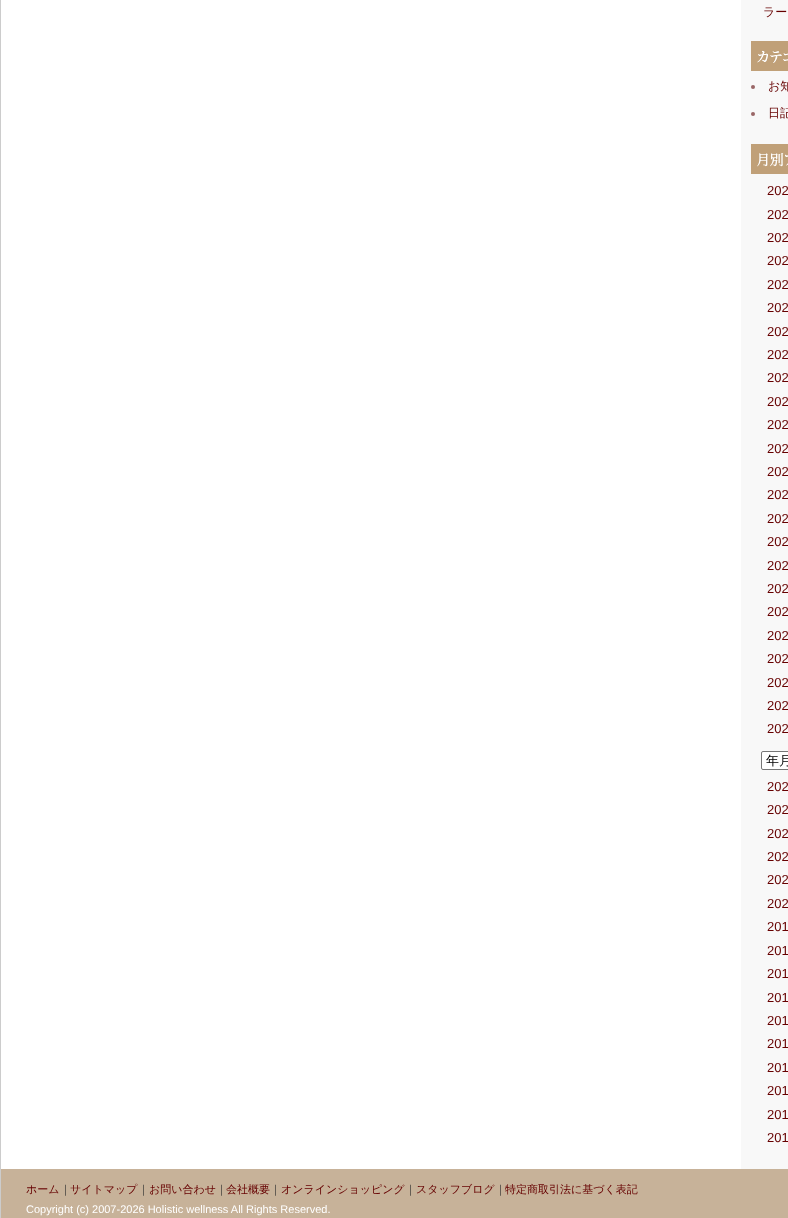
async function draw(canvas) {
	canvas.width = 788;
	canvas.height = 1218;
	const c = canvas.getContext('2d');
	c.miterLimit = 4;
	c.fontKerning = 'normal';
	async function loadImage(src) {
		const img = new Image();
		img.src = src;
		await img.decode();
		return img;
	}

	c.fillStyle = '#fff';
	c.fillRect(0, 0, 788, 1218);
	c.fillStyle = '#ccc';
	c.fillRect(0, 0, 1, 1218);
	c.fillStyle = '#f8f8f8';
	c.fillRect(741, 0, 47, 1169);
	c.font = '500 12px WenQuanYi Zen Hei';
	c.fillStyle = '#600';
	c.fillText('ラー', 763, 16);
	c.drawImage(await loadImage('img1.png'), 751, 41, 37, 30);
	c.fillStyle = '#966';
	c.beginPath();
	c.arc(753, 87, 2, 0, 2 * Math.PI);
	c.fill();
	c.fillStyle = '#600';
	c.fillText('お知', 768, 90);
	c.fillStyle = '#966';
	c.beginPath();
	c.arc(753, 114, 2, 0, 2 * Math.PI);
	c.fill();
	c.fillStyle = '#600';
	c.fillText('日記', 768, 117);
	c.drawImage(await loadImage('img2.png'), 751, 144, 37, 30);
	c.font = '13px Liberation Sans';
	for (const [text, x, y] of [
		['202', 767, 195],
		['202', 767, 219],
		['202', 767, 242],
		['202', 767, 265],
		['202', 767, 289],
		['202', 767, 312],
		['202', 767, 336],
		['202', 767, 359],
		['202', 767, 382],
		['202', 767, 406],
		['202', 767, 429],
		['202', 767, 453],
		['202', 767, 476],
		['202', 767, 499],
		['202', 767, 523],
		['202', 767, 546],
		['202', 767, 570],
		['202', 767, 593],
		['202', 767, 616],
		['202', 767, 640],
		['202', 767, 663],
		['202', 767, 687],
		['202', 767, 710],
		['202', 767, 733],
	]) {
		c.fillText(text, x, y);
	}
	c.fillStyle = '#fff';
	c.beginPath();
	c.roundRect(761.5, 751.5, 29, 18, 1.5);
	c.fill();
	c.strokeStyle = '#767676';
	c.stroke();
	c.font = '500 13px WenQuanYi Zen Hei';
	c.fillStyle = '#000';
	c.fillText('年月', 766, 765);
	c.font = '13px Liberation Sans';
	c.fillStyle = '#600';
	for (const [text, x, y] of [
		['202', 767, 791],
		['202', 767, 814],
		['202', 767, 838],
		['202', 767, 861],
		['202', 767, 884],
		['202', 767, 908],
		['201', 767, 931],
		['201', 767, 955],
		['201', 767, 978],
		['201', 767, 1002],
		['201', 767, 1025],
		['201', 767, 1048],
		['201', 767, 1072],
		['201', 767, 1095],
		['201', 767, 1119],
		['201', 767, 1142],
	]) {
		c.fillText(text, x, y);
	}
	c.fillStyle = '#c7b299';
	c.fillRect(1, 1169, 787, 49);
	c.font = '500 11px WenQuanYi Zen Hei';
	c.fillStyle = '#600';
	c.fillText('ホーム', 26, 1193);
	c.fillStyle = '#333';
	c.fillText('｜', 60, 1193);
	c.fillStyle = '#600';
	c.fillText('サイトマップ', 70, 1193);
	c.fillStyle = '#333';
	c.fillText('｜', 138, 1193);
	c.fillStyle = '#600';
	c.fillText('お問い合わせ', 149, 1193);
	c.fillStyle = '#333';
	c.fillText('｜', 216, 1193);
	c.fillStyle = '#600';
	c.fillText('会社概要', 226, 1193);
	c.fillStyle = '#333';
	c.fillText('｜', 270, 1193);
	c.fillStyle = '#600';
	c.fillText('オンラインショッピング', 281, 1193);
	c.fillStyle = '#333';
	c.fillText('｜', 405, 1193);
	c.fillStyle = '#600';
	c.fillText('スタッフブログ', 416, 1193);
	c.fillStyle = '#333';
	c.fillText('｜', 495, 1193);
	c.fillStyle = '#600';
	c.fillText('特定商取引法に基づく表記', 505, 1193);
	c.font = '11px Liberation Sans';
	c.fillStyle = '#fff';
	c.fillText('Copyright (c) 2007-2026 Holistic wellness All Rights Reserved.', 26, 1213);
}

draw(document.querySelector('canvas'));
